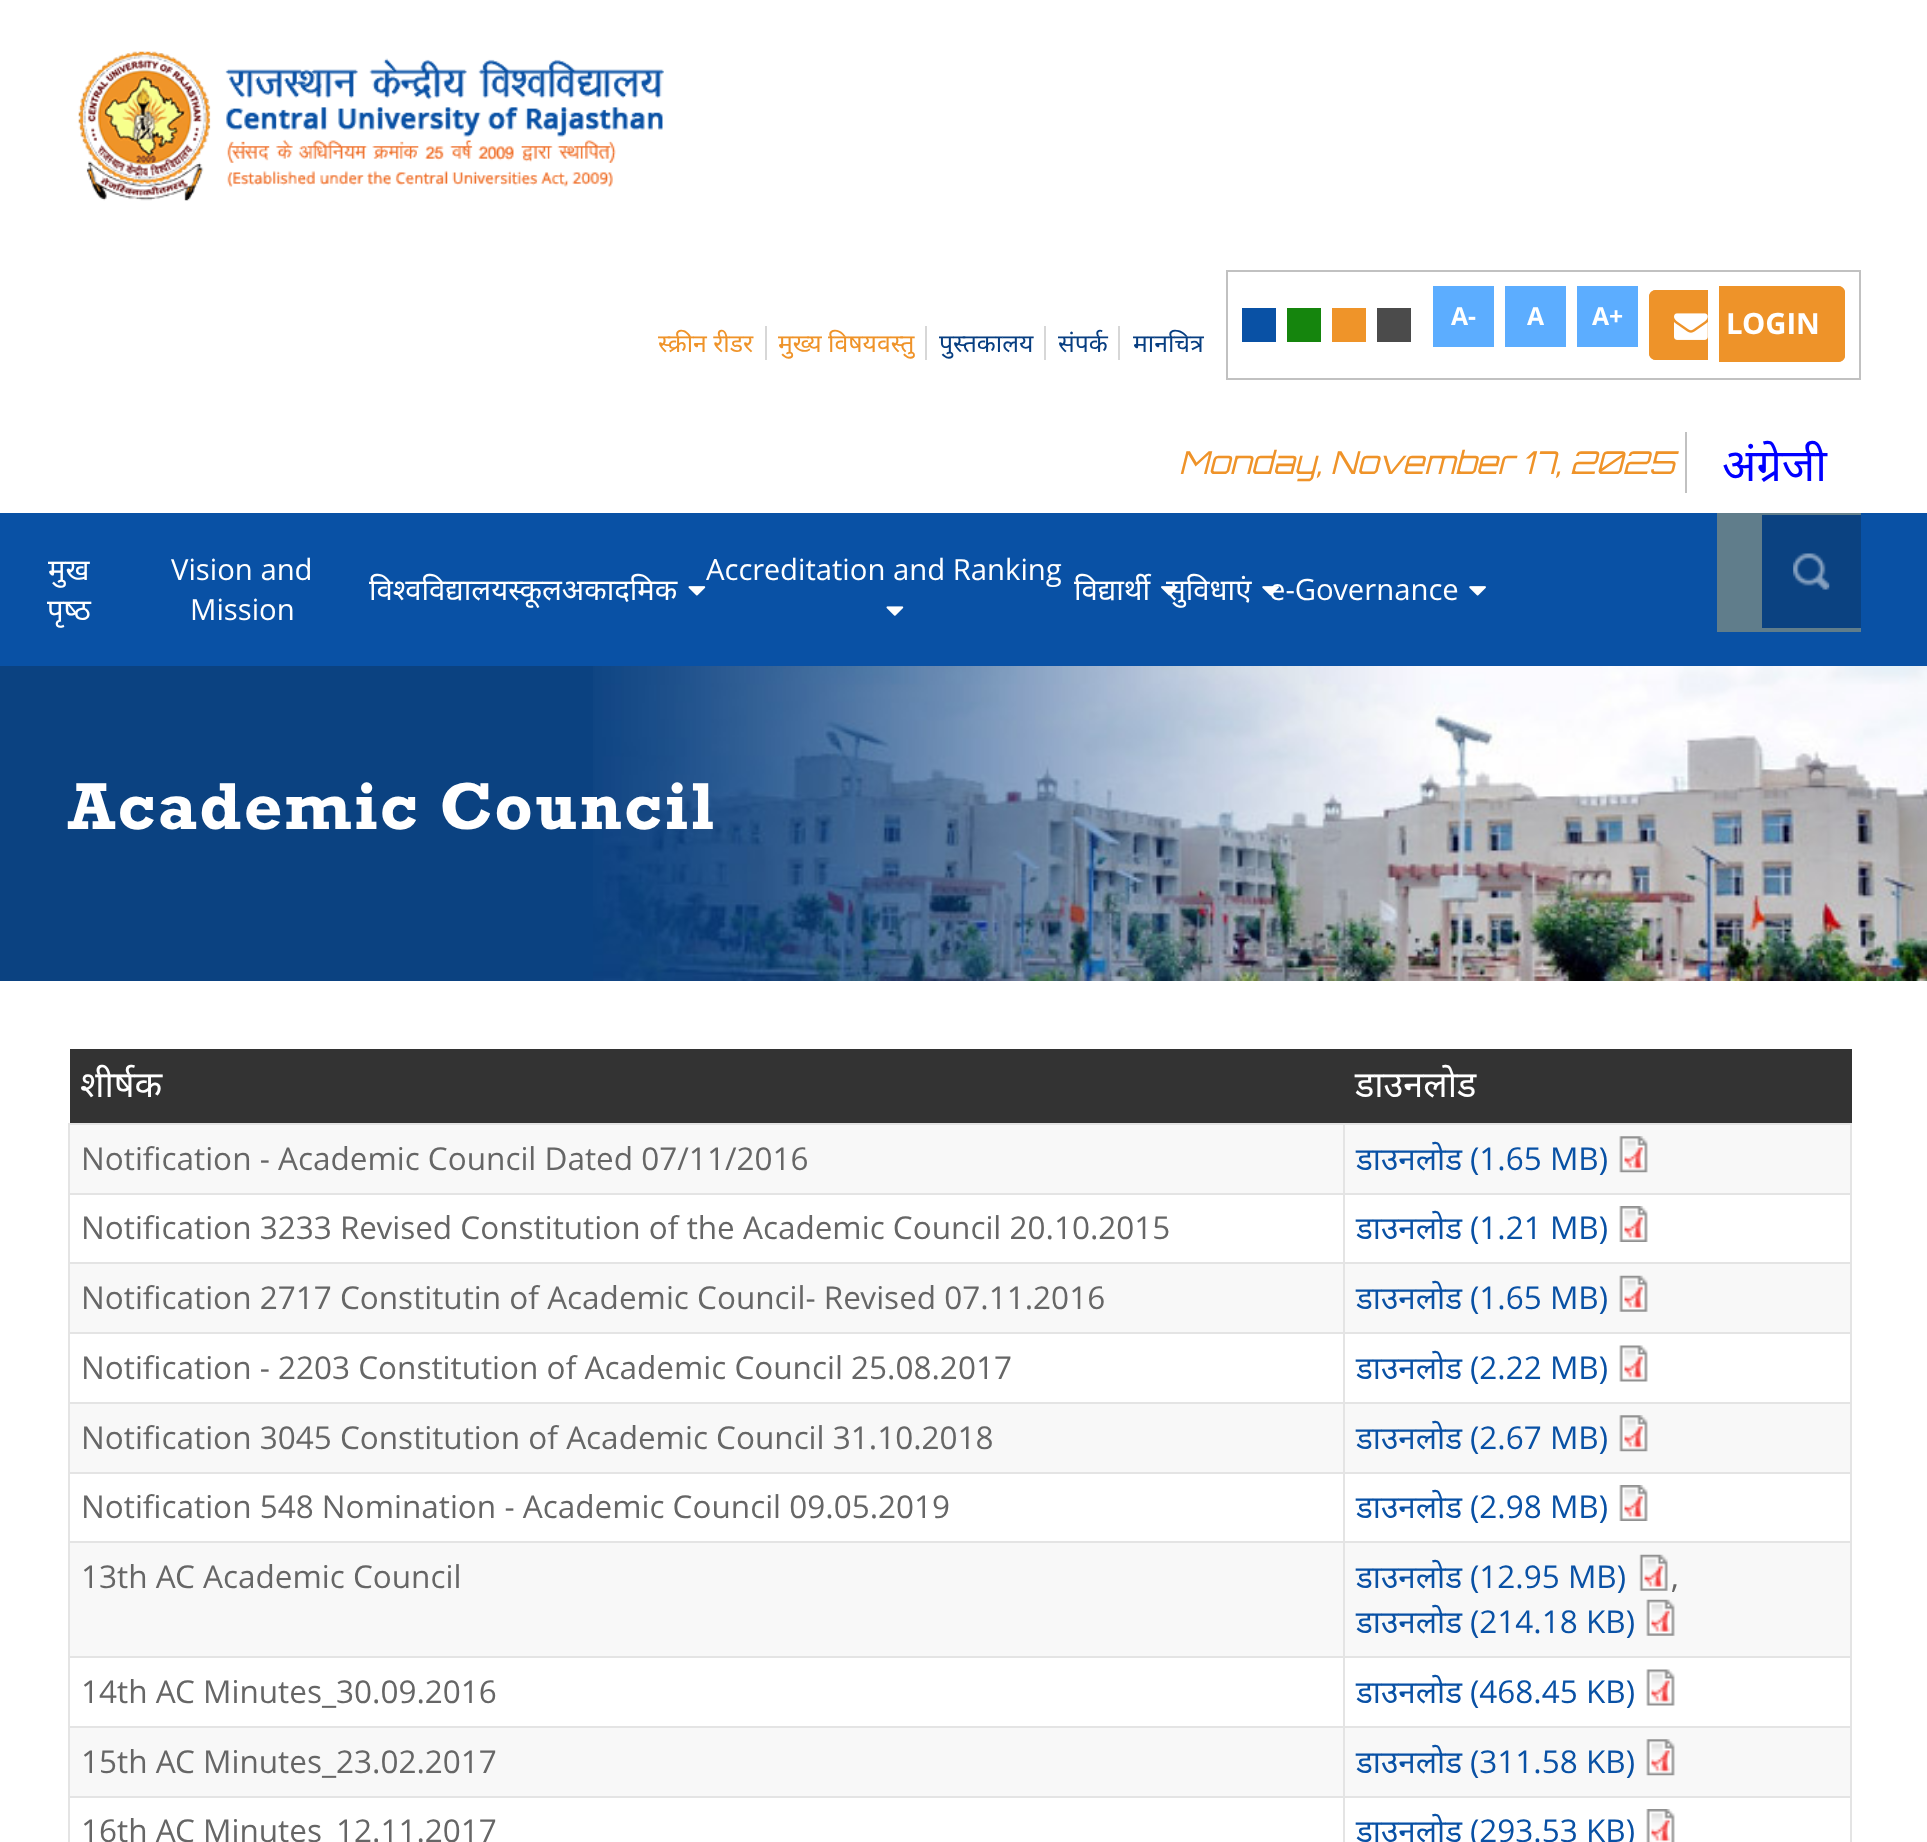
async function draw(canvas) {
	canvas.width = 1927;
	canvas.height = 1842;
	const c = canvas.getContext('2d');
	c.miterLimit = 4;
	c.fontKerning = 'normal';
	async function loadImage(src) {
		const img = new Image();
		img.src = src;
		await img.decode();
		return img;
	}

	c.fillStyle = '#fff';
	c.fillRect(0, 0, 1927, 1842);
	c.drawImage(await loadImage('img1.png'), 78, 51, 586, 150);
	c.strokeStyle = '#c1c1c1';
	c.lineWidth = 2;
	c.strokeRect(1227, 271, 633, 108);
	for (const [x, y, w, h, color] of [
		[1242, 308, 34, 34, '#0951a5'],
		[1287, 308, 34, 34, '#15850d'],
		[1332, 308, 34, 34, '#ef9429'],
		[1377, 308, 34, 34, '#4b4b4b'],
		[1433, 286, 61, 61, '#5cadff'],
	]) {
		c.fillStyle = color;
		c.fillRect(x, y, w, h);
	}
	c.font = 'bold 24.75px Open Sans';
	c.fillStyle = '#fff';
	c.fillText('A-', 1451, 325);
	c.fillStyle = '#5cadff';
	c.fillRect(1505, 286, 61, 61);
	c.fillStyle = '#fff';
	c.fillText('A', 1527, 325);
	c.fillStyle = '#5cadff';
	c.fillRect(1577, 286, 61, 61);
	c.fillStyle = '#fff';
	c.fillText('A+', 1592, 325);
	c.fillStyle = '#ee9329';
	c.beginPath();
	c.roundRect(1649, 290, 59, 70, [7, 0, 0, 7]);
	c.fill();
	c.beginPath();
	c.moveTo(1656, 290);
	c.lineTo(1708, 290);
	c.lineTo(1708, 360);
	c.lineTo(1656, 360);
	c.bezierCurveTo(1652, 360, 1649, 357, 1649, 353);
	c.lineTo(1649, 297);
	c.bezierCurveTo(1649, 293, 1652, 290, 1656, 290);
	c.closePath();
	c.moveTo(1656, 292);
	c.lineTo(1708, 292);
	c.lineTo(1708, 358);
	c.lineTo(1656, 358);
	c.bezierCurveTo(1654, 358, 1652, 356, 1652, 353);
	c.lineTo(1652, 297);
	c.bezierCurveTo(1652, 295, 1654, 292, 1656, 292);
	c.closePath();
	c.fill('evenodd');
	c.beginPath();
	c.roundRect(1719, 286, 126, 76, [0, 7, 7, 0]);
	c.fill();
	c.beginPath();
	c.moveTo(1719, 286);
	c.lineTo(1838, 286);
	c.bezierCurveTo(1842, 286, 1845, 289, 1845, 292);
	c.lineTo(1845, 356);
	c.bezierCurveTo(1845, 359, 1842, 362, 1838, 362);
	c.lineTo(1719, 362);
	c.closePath();
	c.moveTo(1719, 288);
	c.lineTo(1838, 288);
	c.bezierCurveTo(1841, 288, 1843, 290, 1843, 292);
	c.lineTo(1843, 356);
	c.bezierCurveTo(1843, 358, 1841, 360, 1838, 360);
	c.lineTo(1719, 360);
	c.closePath();
	c.fill('evenodd');
	c.drawImage(await loadImage('img2.png'), 1674, 313, 34, 27);
	c.font = 'bold 29.25px Open Sans';
	c.fillStyle = '#fff';
	c.fillText('LOGIN', 1726, 334);
	c.font = '24.75px Noto Sans';
	c.fillStyle = '#ef9329';
	c.fillText('स्क्रीन रीडर', 658, 352);
	c.fillStyle = '#d7d7d7';
	c.fillRect(765, 326, 2, 34);
	c.fillStyle = '#ef9329';
	c.fillText('मुख्य विषयवस्तु', 778, 352);
	c.fillStyle = '#d7d7d7';
	c.fillRect(925, 326, 2, 34);
	c.fillStyle = '#073e81';
	c.fillText('पुस्तकालय', 939, 352);
	c.fillStyle = '#d7d7d7';
	c.fillRect(1044, 326, 2, 34);
	c.fillStyle = '#073e81';
	c.fillText('संपर्क', 1058, 352);
	c.fillStyle = '#d7d7d7';
	c.fillRect(1118, 326, 2, 34);
	c.fillStyle = '#073e81';
	c.fillText('मानचित्र', 1133, 352);
	c.fillStyle = '#c1c1c1';
	c.fillRect(1685, 432, 2, 61);
	c.font = 'italic 31.5px Orbitron';
	c.fillStyle = '#ef9329';
	c.fillText('Monday, November 17, 2025', 1179, 474);
	c.font = '45px Noto Sans';
	c.fillStyle = '#00f';
	c.fillText('अंग्रेजी', 1722, 481);
	c.fillStyle = '#0951a5';
	c.fillRect(0, 513, 1927, 153);
	c.font = '29.25px Noto Sans';
	c.fillStyle = '#fff';
	c.fillText('मुख', 48, 580);
	c.fillText('पृष्‍ठ', 47, 620);
	c.font = '29.25px "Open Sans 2"';
	c.fillText('Vision and', 171, 580);
	c.fillText('Mission', 190, 620);
	c.font = '29.25px Noto Sans';
	c.fillText('विश्वविद्यालयस्कूलअकादमिक', 369, 600);
	c.drawImage(await loadImage('img3.png'), 688, 586, 18, 10);
	c.font = '29.25px "Open Sans 2"';
	c.fillText('Accreditation and Ranking', 706, 580);
	c.drawImage(await loadImage('img4.png'), 886, 606, 18, 10);
	c.font = '29.25px Noto Sans';
	c.fillText('विद्यार्थी', 1074, 600);
	c.drawImage(await loadImage('img5.png'), 1161, 586, 17, 10);
	c.fillText('सुविधाएं', 1166, 600);
	c.drawImage(await loadImage('img6.png'), 1262, 586, 17, 10);
	c.font = '29.25px "Open Sans 2"';
	c.fillText('e-Governance', 1269, 600);
	c.drawImage(await loadImage('img6.png'), 1469, 586, 17, 10);
	c.fillStyle = '#607d8b';
	c.fillRect(1717, 513, 144, 119);
	c.fillStyle = '#0b4281';
	c.fillRect(1762, 515, 99, 113);
	c.drawImage(await loadImage('img7.png'), 1793, 553, 37, 37);
	c.fillRect(0, 666, 593, 315);
	c.drawImage(await loadImage('img8.png'), 593, 666, 1334, 315);
	c.letterSpacing = '2.25px';
	c.font = 'bold 67.5px Rockwell';
	c.fillStyle = '#fff';
	c.fillText('Academic Council', 68, 829);
	c.fillStyle = '#333';
	c.fillRect(70, 1049, 1782, 74);
	c.letterSpacing = '0px';
	c.font = '36px Noto Sans';
	c.fillStyle = '#fff';
	c.fillText('शीर्षक', 80, 1097);
	c.fillText('डाउनलोड', 1355, 1097);
	for (const [x, y, w, h, color] of [
		[70, 1125, 1780, 68, '#f8f8f8'],
		[1343, 1123, 509, 2, '#e4e4e4'],
		[1343, 1193, 509, 2, '#e4e4e4'],
		[70, 1264, 1780, 68, '#f8f8f8'],
		[1343, 1262, 509, 2, '#e4e4e4'],
		[1343, 1332, 509, 2, '#e4e4e4'],
		[1343, 1402, 509, 2, '#e4e4e4'],
		[70, 1404, 1780, 68, '#f8f8f8'],
		[1343, 1472, 509, 2, '#e4e4e4'],
		[70, 1543, 1780, 113, '#f8f8f8'],
		[1343, 1541, 509, 2, '#e4e4e4'],
		[1343, 1656, 509, 2, '#e4e4e4'],
		[1343, 1726, 509, 2, '#e4e4e4'],
		[70, 1728, 1780, 68, '#f8f8f8'],
		[1343, 1796, 509, 2, '#e4e4e4'],
		[1343, 1796, 2, 46, '#e4e4e4'],
		[68, 1796, 1278, 2, '#e4e4e4'],
		[1343, 1726, 2, 72, '#e4e4e4'],
		[68, 1726, 1278, 2, '#e4e4e4'],
		[1343, 1656, 2, 72, '#e4e4e4'],
		[68, 1656, 1278, 2, '#e4e4e4'],
		[1343, 1541, 2, 117, '#e4e4e4'],
		[68, 1541, 1278, 2, '#e4e4e4'],
		[1343, 1472, 2, 72, '#e4e4e4'],
		[68, 1472, 1278, 2, '#e4e4e4'],
		[1343, 1402, 2, 72, '#e4e4e4'],
		[68, 1402, 1278, 2, '#e4e4e4'],
		[1343, 1332, 2, 72, '#e4e4e4'],
		[68, 1332, 1278, 2, '#e4e4e4'],
		[1343, 1262, 2, 72, '#e4e4e4'],
		[68, 1262, 1278, 2, '#e4e4e4'],
		[1343, 1193, 2, 72, '#e4e4e4'],
		[68, 1193, 1278, 2, '#e4e4e4'],
		[1343, 1123, 2, 72, '#e4e4e4'],
		[68, 1123, 1278, 2, '#e4e4e4'],
		[68, 1796, 2, 46, '#e4e4e4'],
		[68, 1726, 2, 72, '#e4e4e4'],
		[68, 1656, 2, 72, '#e4e4e4'],
		[68, 1541, 2, 117, '#e4e4e4'],
		[68, 1472, 2, 72, '#e4e4e4'],
		[68, 1402, 2, 72, '#e4e4e4'],
		[68, 1332, 2, 72, '#e4e4e4'],
		[68, 1262, 2, 72, '#e4e4e4'],
		[68, 1193, 2, 72, '#e4e4e4'],
		[68, 1123, 2, 72, '#e4e4e4'],
	]) {
		c.fillStyle = color;
		c.fillRect(x, y, w, h);
	}
	c.font = '31.5px Open Sans';
	c.fillStyle = '#666';
	c.fillText('Notification - Academic Council Dated 07/11/2016', 81, 1170);
	for (const [x, y, w, h, color] of [
		[1850, 1796, 2, 46, '#e4e4e4'],
		[1850, 1726, 2, 72, '#e4e4e4'],
		[1850, 1656, 2, 72, '#e4e4e4'],
		[1850, 1541, 2, 117, '#e4e4e4'],
		[1850, 1472, 2, 72, '#e4e4e4'],
		[1850, 1402, 2, 72, '#e4e4e4'],
		[1850, 1332, 2, 72, '#e4e4e4'],
		[1850, 1262, 2, 72, '#e4e4e4'],
		[1850, 1193, 2, 72, '#e4e4e4'],
		[1850, 1123, 2, 72, '#e4e4e4'],
	]) {
		c.fillStyle = color;
		c.fillRect(x, y, w, h);
	}
	c.font = '31.5px Noto Sans';
	c.fillStyle = '#0951a5';
	c.fillText('डाउनलोड', 1356, 1170);
	c.font = '31.5px Open Sans';
	c.fillText('(1.65 MB)', 1470, 1170);
	c.drawImage(await loadImage('img9.png'), 1619, 1136, 29, 37);
	c.fillStyle = '#666';
	c.fillText('Notification 3233 Revised Constitution of the Academic Council 20.10.2015', 81, 1239);
	c.font = '31.5px Noto Sans';
	c.fillStyle = '#0951a5';
	c.fillText('डाउनलोड', 1356, 1239);
	c.font = '31.5px Open Sans';
	c.fillText('(1.21 MB)', 1470, 1239);
	c.drawImage(await loadImage('img10.png'), 1619, 1206, 29, 36);
	c.fillStyle = '#666';
	c.fillText('Notification 2717 Constitutin of Academic Council- Revised 07.11.2016', 81, 1309);
	c.font = '31.5px Noto Sans';
	c.fillStyle = '#0951a5';
	c.fillText('डाउनलोड', 1356, 1309);
	c.font = '31.5px Open Sans';
	c.fillText('(1.65 MB)', 1470, 1309);
	c.drawImage(await loadImage('img11.png'), 1619, 1275, 29, 37);
	c.fillStyle = '#666';
	c.fillText('Notification - 2203 Constitution of Academic Council 25.08.2017', 81, 1379);
	c.font = '31.5px Noto Sans';
	c.fillStyle = '#0951a5';
	c.fillText('डाउनलोड', 1356, 1379);
	c.font = '31.5px Open Sans';
	c.fillText('(2.22 MB)', 1470, 1379);
	c.drawImage(await loadImage('img12.png'), 1619, 1345, 29, 37);
	c.fillStyle = '#666';
	c.fillText('Notification 3045 Constitution of Academic Council 31.10.2018', 81, 1449);
	c.font = '31.5px Noto Sans';
	c.fillStyle = '#0951a5';
	c.fillText('डाउनलोड', 1356, 1449);
	c.font = '31.5px Open Sans';
	c.fillText('(2.67 MB)', 1470, 1449);
	c.drawImage(await loadImage('img13.png'), 1619, 1415, 29, 37);
	c.fillStyle = '#666';
	c.fillText('Notification 548 Nomination - Academic Council 09.05.2019', 81, 1518);
	c.font = '31.5px Noto Sans';
	c.fillStyle = '#0951a5';
	c.fillText('डाउनलोड', 1356, 1518);
	c.font = '31.5px Open Sans';
	c.fillText('(2.98 MB)', 1470, 1518);
	c.drawImage(await loadImage('img10.png'), 1619, 1485, 29, 36);
	c.fillStyle = '#666';
	c.fillText('13th AC Academic Council', 81, 1588);
	c.font = '31.5px Noto Sans';
	c.fillStyle = '#0951a5';
	c.fillText('डाउनलोड', 1356, 1588);
	c.font = '31.5px Open Sans';
	c.fillText('(12.95 MB)', 1470, 1588);
	c.drawImage(await loadImage('img14.png'), 1639, 1554, 29, 37);
	c.fillStyle = '#666';
	c.fillText(',', 1671, 1588);
	c.font = '31.5px Noto Sans';
	c.fillStyle = '#0951a5';
	c.fillText('डाउनलोड', 1356, 1633);
	c.font = '31.5px Open Sans';
	c.fillText('(214.18 KB)', 1470, 1633);
	c.drawImage(await loadImage('img11.png'), 1646, 1599, 29, 37);
	c.fillStyle = '#666';
	c.fillText('14th AC Minutes_30.09.2016', 81, 1703);
	c.font = '31.5px Noto Sans';
	c.fillStyle = '#0951a5';
	c.fillText('डाउनलोड', 1356, 1703);
	c.font = '31.5px Open Sans';
	c.fillText('(468.45 KB)', 1470, 1703);
	c.drawImage(await loadImage('img12.png'), 1646, 1669, 29, 37);
	c.fillStyle = '#666';
	c.fillText('15th AC Minutes_23.02.2017', 81, 1773);
	c.font = '31.5px Noto Sans';
	c.fillStyle = '#0951a5';
	c.fillText('डाउनलोड', 1356, 1773);
	c.font = '31.5px Open Sans';
	c.fillText('(311.58 KB)', 1470, 1773);
	c.drawImage(await loadImage('img13.png'), 1646, 1739, 29, 37);
	c.fillStyle = '#666';
	c.fillText('16th AC Minutes_12.11.2017', 81, 1842);
	c.font = '31.5px Noto Sans';
	c.fillStyle = '#0951a5';
	c.fillText('डाउनलोड', 1356, 1842);
	c.font = '31.5px Open Sans';
	c.fillText('(293.53 KB)', 1470, 1842);
	c.drawImage(await loadImage('img15.png'), 1646, 1809, 29, 33);
}

draw(document.querySelector('canvas'));
